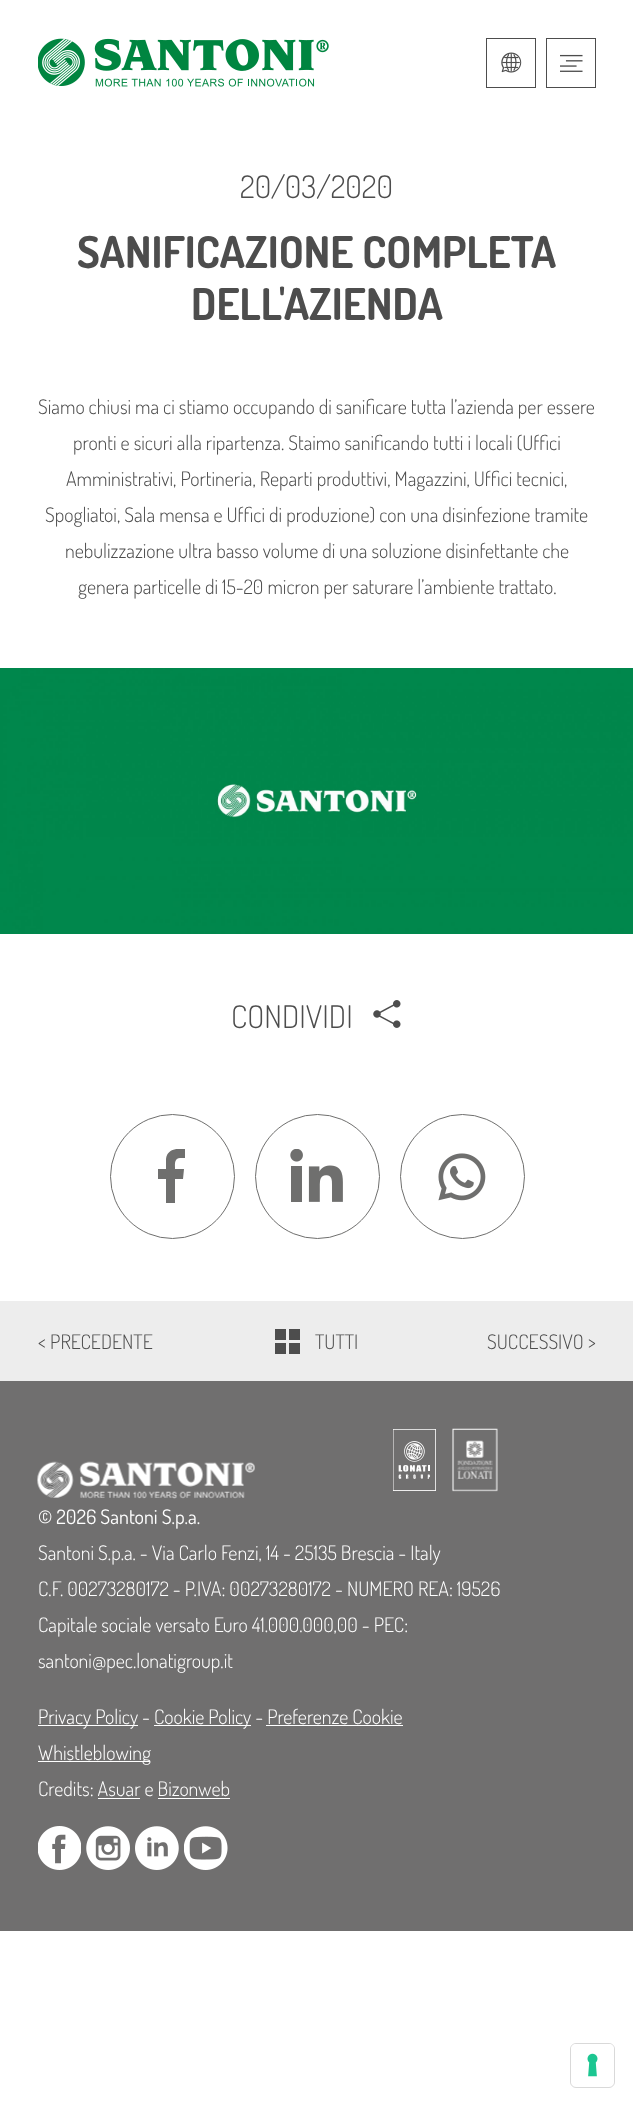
async function draw(canvas) {
	canvas.width = 633;
	canvas.height = 2106;
	const c = canvas.getContext('2d');
	c.miterLimit = 4;
	c.fontKerning = 'normal';
	async function loadImage(src) {
		const img = new Image();
		img.src = src;
		await img.decode();
		return img;
	}

	c.fillStyle = '#fff';
	c.fillRect(0, 0, 633, 2106);
	c.drawImage(await loadImage('img1.png'), 38, 38, 291, 49);
	c.strokeStyle = '#4d4d4d';
	c.strokeRect(486.5, 38.5, 49, 49);
	c.drawImage(await loadImage('img2.png'), 501, 52, 21, 21);
	c.strokeRect(546.5, 38.5, 49, 49);
	c.drawImage(await loadImage('img3.png'), 560, 54, 23, 18);
	c.font = '300 31.25px Dosis';
	c.fillStyle = '#4d4d4d';
	c.fillText('20/03/2020', 240, 198);
	c.font = 'bold 43.75px Dosis';
	c.fillText('SANIFICAZIONE COMPLETA', 77, 268);
	c.fillText('DELL\'AZIENDA', 191, 320);
	c.font = '300 20px Dosis';
	for (const [text, x, y] of [
		['Siamo chiusi ma ci stiamo occupando di sanificare tutta l’azienda per essere', 38, 414],
		['pronti e sicuri alla ripartenza. Staimo sanificando tutti i locali (Uffici', 73, 450],
		['Amministrativi, Portineria, Reparti produttivi, Magazzini, Uffici tecnici,', 66, 486],
		['Spogliatoi, Sala mensa e Uffici di produzione) con una disinfezione tramite', 45, 522],
		['nebulizzazione ultra basso volume di una soluzione disinfettante che', 65, 558],
		['genera particelle di 15-20 micron per saturare l’ambiente trattato.', 78, 594],
	]) {
		c.fillText(text, x, y);
	}
	c.drawImage(await loadImage('img4.png'), 0, 668, 633, 266);
	c.font = '300 31.25px Dosis';
	c.fillText('CONDIVIDI', 231, 1028);
	c.drawImage(await loadImage('img5.png'), 373, 1000, 28, 28);
	c.beginPath();
	c.arc(172.5, 1176.5, 62, 0, 2 * Math.PI);
	c.strokeStyle = '#6f6f6e';
	c.stroke();
	c.save();
	c.beginPath();
	c.rect(144, 1149, 56, 56);
	c.clip();
	c.fillStyle = '#6f6f6e';
	c.beginPath();
	c.moveTo(180, 1158);
	c.lineTo(185, 1158);
	c.lineTo(185, 1149);
	c.bezierCurveTo(177, 1148, 167, 1149, 166, 1159);
	c.lineTo(166, 1169);
	c.lineTo(158, 1169);
	c.lineTo(158, 1179);
	c.lineTo(166, 1179);
	c.lineTo(166, 1203);
	c.lineTo(175, 1203);
	c.lineTo(175, 1179);
	c.lineTo(183, 1179);
	c.lineTo(184, 1169);
	c.lineTo(175, 1169);
	c.bezierCurveTo(175, 1165, 174, 1158, 180, 1158);
	c.fill('evenodd');
	c.restore();
	c.beginPath();
	c.arc(317.5, 1176.5, 62, 0, 2 * Math.PI);
	c.stroke();
	c.drawImage(await loadImage('img6.png'), 290, 1149, 53, 53);
	c.beginPath();
	c.arc(462.5, 1176.5, 62, 0, 2 * Math.PI);
	c.stroke();
	c.drawImage(await loadImage('img7.png'), 438, 1153, 48, 48);
	c.fillStyle = '#ededed';
	c.fillRect(0, 1301, 633, 80);
	c.font = '300 20px Dosis';
	c.fillStyle = '#4d4d4d';
	c.fillText('< PRECEDENTE', 38, 1349);
	for (const [x, y, w, h, color] of [
		[275, 1329, 11, 11, '#4d4d4d'],
		[289, 1329, 11, 11, '#4d4d4d'],
		[275, 1343, 11, 11, '#4d4d4d'],
		[289, 1343, 11, 11, '#4d4d4d'],
	]) {
		c.fillStyle = color;
		c.fillRect(x, y, w, h);
	}
	c.fillText('TUTTI', 315, 1349);
	c.fillText('SUCCESSIVO >', 487, 1349);
	c.fillStyle = '#706f6f';
	c.fillRect(0, 1381, 633, 550);
	c.drawImage(await loadImage('img8.png'), 37, 1461, 218, 38);
	c.drawImage(await loadImage('img9.png'), 393, 1429, 43, 62);
	c.drawImage(await loadImage('img10.png'), 452, 1428, 46, 64);
	c.font = '20px Dosis';
	c.fillStyle = '#fff';
	c.fillText('© 2026 Santoni S.p.a.', 38, 1524);
	c.font = '300 20px Dosis';
	for (const [text, x, y] of [
		['Santoni S.p.a. - Via Carlo Fenzi, 14 - 25135 Brescia - Italy', 38, 1560],
		['C.F. 00273280172 - P.IVA: 00273280172 - NUMERO REA: 19526', 38, 1596],
		['Capitale sociale versato Euro 41.000.000,00 - PEC:', 38, 1632],
		['santoni@pec.lonatigroup.it', 38, 1668],
	]) {
		c.fillText(text, x, y);
	}
	c.fillRect(38, 1725, 100, 1);
	c.fillText('Privacy Policy -', 38, 1724);
	c.fillRect(154, 1725, 97, 1);
	c.fillText('Cookie Policy - Preferenze Cookie', 154, 1724);
	c.fillRect(266, 1725, 137, 1);
	c.fillRect(38, 1761, 112, 1);
	c.fillText('Whistleblowing', 38, 1760);
	c.fillText('Credits: Asuar e Bizonweb', 38, 1796);
	c.fillRect(98, 1798, 42, 1);
	c.fillRect(158, 1798, 72, 1);
	c.drawImage(await loadImage('img11.png'), 38, 1826, 43, 44);
	c.drawImage(await loadImage('img12.png'), 86, 1826, 44, 44);
	c.drawImage(await loadImage('img13.png'), 135, 1826, 44, 44);
	c.drawImage(await loadImage('img14.png'), 184, 1826, 44, 44);
	c.beginPath();
	c.roundRect(570.5, 2043.5, 44, 44, 5.5);
	c.strokeStyle = '#d9d9d9';
	c.stroke();
	c.beginPath();
	c.roundRect(571, 2044, 43, 42, 5);
	c.fill();
	c.drawImage(await loadImage('img15.png'), 587, 2053, 11, 24);
}

draw(document.querySelector('canvas'));
